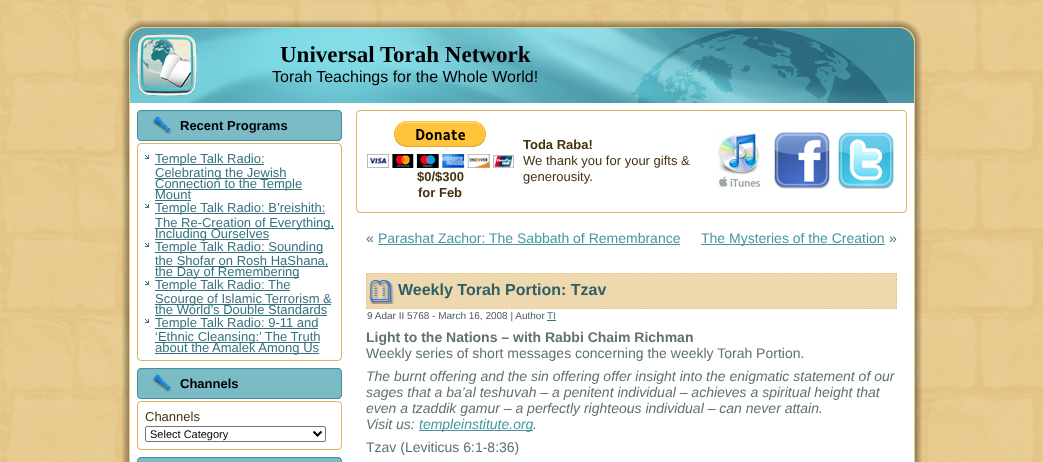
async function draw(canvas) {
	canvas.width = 1043;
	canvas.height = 462;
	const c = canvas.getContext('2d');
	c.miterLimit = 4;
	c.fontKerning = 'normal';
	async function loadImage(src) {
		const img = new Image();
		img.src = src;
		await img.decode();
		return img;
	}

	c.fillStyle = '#fff';
	c.fillRect(0, 0, 1043, 462);
	c.drawImage(await loadImage('img1.png'), 0, 0, 1043, 462);
	c.drawImage(await loadImage('img2.png'), 122, 20, 44, 44);
	c.drawImage(await loadImage('img3.png'), 166, 20, 712, 8);
	c.drawImage(await loadImage('img4.png'), 878, 20, 44, 44);
	c.drawImage(await loadImage('img5.png'), 122, 64, 44, 398);
	c.drawImage(await loadImage('img22.png'), 878, 64, 44, 398);
	c.drawImage(await loadImage('img6.png'), 130, 28, 784, 75);
	c.drawImage(await loadImage('img7.png'), 145, 43, 752, 45);
	c.font = 'bold 23px Liberation Serif';
	c.fillStyle = '#000';
	c.fillText('Universal Torah Network', 280, 62);
	c.font = '16px Liberation Sans';
	c.fillText('Torah Teachings for the Whole World!', 272, 82);
	c.fillStyle = '#fff';
	c.fillRect(166, 103, 712, 359);
	c.drawImage(await loadImage('img8.png'), 137, 110, 168, 31);
	c.drawImage(await loadImage('img9.png'), 305, 110, 37, 31);
	c.font = 'bold 13px Liberation Sans';
	c.fillStyle = '#000';
	c.fillText('Recent Programs', 180, 130);
	c.drawImage(await loadImage('img10.png'), 137, 143, 5, 5);
	c.fillStyle = '#deb563';
	c.fillRect(142, 143, 195, 1);
	c.drawImage(await loadImage('img11.png'), 337, 143, 5, 5);
	c.fillRect(137, 148, 1, 208);
	c.drawImage(await loadImage('img12.png'), 145, 155, 4, 4);
	c.fillStyle = '#36727d';
	c.fillRect(155, 164, 109, 1);
	c.font = '13px Liberation Sans';
	c.fillText('Temple Talk Radio:', 155, 163);
	c.fillRect(155, 178, 131, 1);
	c.fillText('Celebrating the Jewish', 155, 177);
	c.fillRect(155, 189, 147, 1);
	c.fillText('Connection to the Temple', 155, 188);
	c.fillText('Mount', 155, 199);
	c.fillRect(155, 200, 36, 1);
	c.drawImage(await loadImage('img12.png'), 145, 204, 4, 4);
	c.fillRect(155, 213, 170, 1);
	c.fillText('Temple Talk Radio: B’reishith:', 155, 212);
	c.fillRect(155, 228, 179, 1);
	c.fillText('The Re-Creation of Everything,', 155, 227);
	c.fillRect(155, 239, 114, 1);
	c.fillText('Including Ourselves', 155, 238);
	c.drawImage(await loadImage('img12.png'), 145, 243, 4, 4);
	c.fillRect(155, 252, 168, 1);
	c.fillText('Temple Talk Radio: Sounding', 155, 251);
	c.fillRect(155, 266, 173, 1);
	c.fillText('the Shofar on Rosh HaShana,', 155, 265);
	c.fillRect(155, 277, 144, 1);
	c.fillText('the Day of Remembering', 155, 276);
	c.drawImage(await loadImage('img12.png'), 145, 281, 4, 4);
	c.fillRect(155, 290, 135, 1);
	c.fillText('Temple Talk Radio: The', 155, 289);
	c.fillRect(155, 304, 176, 1);
	c.fillText('Scourge of Islamic Terrorism &', 155, 303);
	c.fillText('the World’s Double Standards', 155, 314);
	c.fillRect(155, 315, 172, 1);
	c.drawImage(await loadImage('img12.png'), 145, 319, 4, 4);
	c.fillRect(155, 328, 163, 1);
	c.fillText('Temple Talk Radio: 9-11 and', 155, 327);
	c.fillRect(155, 342, 165, 1);
	c.fillText('‘Ethnic Cleansing:’ The Truth', 155, 341);
	c.fillRect(155, 353, 164, 1);
	c.fillText('about the Amalek Among Us', 155, 352);
	c.fillStyle = '#deb563';
	c.fillRect(341, 148, 1, 208);
	c.drawImage(await loadImage('img13.png'), 137, 356, 5, 5);
	c.fillRect(142, 360, 195, 1);
	c.drawImage(await loadImage('img14.png'), 337, 356, 5, 5);
	c.drawImage(await loadImage('img8.png'), 137, 368, 168, 31);
	c.drawImage(await loadImage('img9.png'), 305, 368, 37, 31);
	c.font = 'bold 13px Liberation Sans';
	c.fillStyle = '#000';
	c.fillText('Channels', 180, 388);
	c.drawImage(await loadImage('img10.png'), 137, 401, 5, 5);
	c.fillStyle = '#deb563';
	c.fillRect(142, 401, 195, 1);
	c.drawImage(await loadImage('img11.png'), 337, 401, 5, 5);
	c.fillRect(137, 406, 1, 39);
	c.font = '13px Liberation Sans';
	c.fillStyle = '#43320e';
	c.fillText('Channels', 145, 421);
	c.beginPath();
	c.roundRect(145.5, 426.5, 180, 15, 1.5);
	c.strokeStyle = '#767676';
	c.stroke();
	c.beginPath();
	c.moveTo(313.5, 431.5);
	c.lineTo(317.5, 435.5);
	c.lineTo(321.5, 431.5);
	c.strokeStyle = '#000';
	c.lineWidth = 2;
	c.stroke();
	c.font = '11px Liberation Sans';
	c.fillStyle = '#000';
	c.fillText('Select Category', 150, 438);
	c.fillStyle = '#deb563';
	c.fillRect(341, 406, 1, 39);
	c.drawImage(await loadImage('img13.png'), 137, 445, 5, 5);
	c.fillRect(142, 449, 195, 1);
	c.drawImage(await loadImage('img14.png'), 337, 445, 5, 5);
	c.drawImage(await loadImage('img15.png'), 137, 457, 168, 5);
	c.drawImage(await loadImage('img16.png'), 305, 457, 37, 5);
	c.drawImage(await loadImage('img10.png'), 356, 110, 5, 5);
	c.fillRect(361, 110, 541, 1);
	c.drawImage(await loadImage('img11.png'), 902, 110, 5, 5);
	c.fillRect(356, 115, 1, 93);
	c.drawImage(await loadImage('img17.png'), 367, 121, 147, 47);
	c.font = 'bold 13px Liberation Sans';
	c.fillStyle = '#43320e';
	for (const [text, x, y] of [
		['$0/$300', 417, 181],
		['for Feb', 418, 197],
		['Toda Raba!', 523, 149],
	]) {
		c.fillText(text, x, y);
	}
	c.font = '13px Liberation Sans';
	c.fillText('We thank you for your gifts &', 523, 165);
	c.fillText('generousity.', 523, 181);
	c.drawImage(await loadImage('img18.png'), 713, 131, 48, 56);
	c.drawImage(await loadImage('img19.png'), 774, 132, 56, 57);
	c.drawImage(await loadImage('img20.png'), 838, 132, 56, 57);
	c.fillStyle = '#deb563';
	c.fillRect(906, 115, 1, 93);
	c.drawImage(await loadImage('img13.png'), 356, 208, 5, 5);
	c.fillRect(361, 212, 541, 1);
	c.drawImage(await loadImage('img14.png'), 902, 208, 5, 5);
	c.font = '14px Liberation Sans';
	c.fillStyle = '#5e7173';
	c.fillText('«', 366, 243);
	c.fillStyle = '#4696a4';
	c.fillText('Parashat Zachor: The Sabbath of Remembrance', 378, 243);
	c.fillRect(378, 244, 302, 1);
	c.fillRect(701, 244, 184, 1);
	c.fillText('The Mysteries of the Creation', 701, 243);
	c.fillStyle = '#5e7173';
	c.fillText('»', 889, 243);
	c.fillStyle = '#eed9af';
	c.fillRect(366, 273, 531, 36);
	c.beginPath();
	c.moveTo(366, 273.5);
	c.lineTo(897, 273.5);
	c.strokeStyle = '#e7c98d';
	c.lineWidth = 1;
	c.setLineDash([3, 1.98]);
	c.stroke();
	c.beginPath();
	c.moveTo(896.5, 273);
	c.lineTo(896.5, 309);
	c.setLineDash([3, 1.71]);
	c.stroke();
	c.beginPath();
	c.moveTo(366, 308.5);
	c.lineTo(897, 308.5);
	c.setLineDash([3, 1.98]);
	c.stroke();
	c.beginPath();
	c.moveTo(366.5, 273);
	c.lineTo(366.5, 309);
	c.setLineDash([3, 1.71]);
	c.stroke();
	c.drawImage(await loadImage('img21.png'), 369, 279, 25, 25);
	c.font = 'bold 16px Liberation Sans';
	c.fillStyle = '#2c5f68';
	c.fillText('Weekly Torah Portion: Tzav', 398, 295);
	c.font = '10px Liberation Sans';
	c.fillStyle = '#4c5b5d';
	c.fillText('‍‍9 Adar II 5768 - March 16, 2008 | Author', 367, 319);
	c.fillStyle = '#36727d';
	c.fillText('TI', 547, 319);
	c.fillRect(547, 320, 9, 1);
	c.font = 'bold 14px Liberation Sans';
	c.fillStyle = '#5e7173';
	c.fillText('Light to the Nations – with Rabbi Chaim Richman', 366, 342);
	c.font = '14px Liberation Sans';
	c.fillText('Weekly series of short messages concerning the weekly Torah Portion.', 366, 358);
	c.font = 'italic 14px Liberation Sans';
	for (const [text, x, y] of [
		['The burnt offering and the sin offering offer insight into the enigmatic statement of our', 366, 381],
		['sages that a ba’al teshuvah – a penitent individual – achieves a spiritual height that', 366, 397],
		['even a tzaddik gamur – a perfectly righteous individual – can never attain.', 366, 413],
		['Visit us:', 366, 429],
	]) {
		c.fillText(text, x, y);
	}
	c.fillStyle = '#4696a4';
	c.fillRect(419, 430, 114, 1);
	c.fillText('templeinstitute.org', 419, 429);
	c.fillStyle = '#5e7173';
	c.fillText('.', 533, 429);
	c.font = '14px Liberation Sans';
	c.fillText('Tzav (Leviticus 6:1-8:36)', 366, 452);
}

draw(document.querySelector('canvas'));
